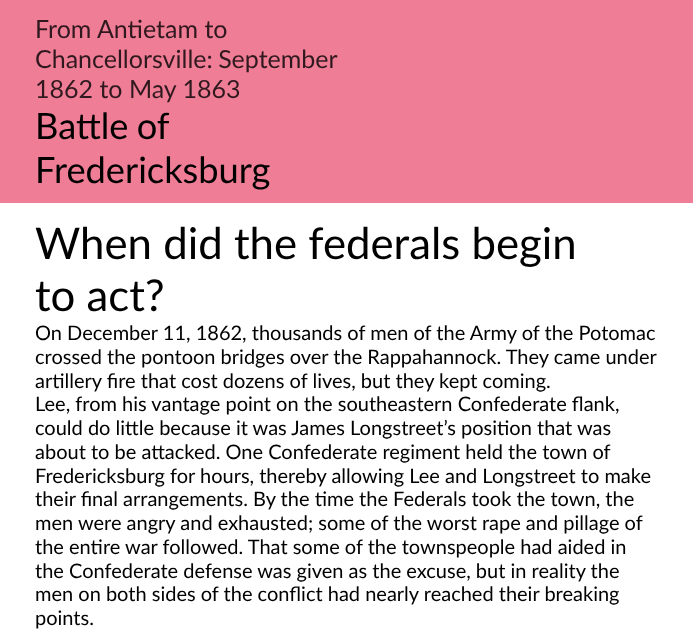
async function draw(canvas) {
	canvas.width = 693;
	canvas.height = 638;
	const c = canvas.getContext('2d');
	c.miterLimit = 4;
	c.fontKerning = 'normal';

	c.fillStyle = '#fff';
	c.fillRect(0, 0, 693, 638);
	c.fillStyle = '#ef7d96';
	c.fillRect(0, 0, 693, 203);
	c.font = '25px Lato';
	c.fillStyle = '#30191e';
	c.fillText('From Antietam to', 35, 38);
	c.wordSpacing = '-1px';
	c.fillText('Chancellorsville: September', 35, 68);
	c.wordSpacing = '0px';
	c.fillText('1862 to May 1863', 35, 98);
	c.wordSpacing = '-1px';
	c.font = '36.25px Lato';
	c.fillStyle = '#000';
	c.fillText('Battle of', 35, 139);
	c.wordSpacing = '0px';
	c.fillText('Fredericksburg', 35, 183);
	c.font = '43.75px Lato';
	c.fillText('When did the federals begin', 35, 259);
	c.fillText('to act?', 35, 311);
	c.font = '20px Lato';
	for (const [text, x, y] of [
		['On December 11, 1862, thousands of men of the Army of the Potomac', 35, 340],
		['crossed the pontoon bridges over the Rappahannock. They came under', 35, 364],
		['artillery fire that cost dozens of lives, but they kept coming.', 35, 388],
		['Lee, from his vantage point on the southeastern Confederate flank,', 35, 411],
		['could do little because it was James Longstreet’s position that was', 35, 435],
		['about to be attacked. One Confederate regiment held the town of', 35, 459],
		['Fredericksburg for hours, thereby allowing Lee and Longstreet to make', 35, 483],
		['their final arrangements. By the time the Federals took the town, the', 35, 506],
		['men were angry and exhausted; some of the worst rape and pillage of', 35, 530],
		['the entire war followed. That some of the townspeople had aided in', 35, 554],
		['the Confederate defense was given as the excuse, but in reality the', 35, 578],
		['men on both sides of the conflict had nearly reached their breaking', 35, 601],
		['points.', 35, 625],
	]) {
		c.fillText(text, x, y);
	}
}

draw(document.querySelector('canvas'));
